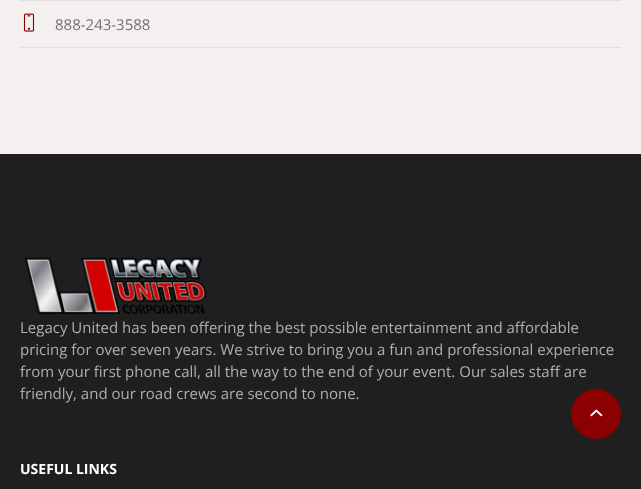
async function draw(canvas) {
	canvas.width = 641;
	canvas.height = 489;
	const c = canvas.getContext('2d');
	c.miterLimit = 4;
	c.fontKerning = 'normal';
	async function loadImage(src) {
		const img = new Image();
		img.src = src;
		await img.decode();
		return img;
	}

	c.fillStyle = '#f5f0f0';
	c.fillRect(0, 0, 641, 489);
	c.fillStyle = '#e3dfde';
	c.fillRect(20, 0, 601, 1);
	c.fillRect(20, 47, 601, 1);
	c.drawImage(await loadImage('img1.png'), 23, 13, 12, 19);
	c.font = '15px Open Sans';
	c.fillStyle = '#716f6e';
	c.fillText('888-243-3588', 55, 30);
	c.fillStyle = '#1f1f1f';
	c.fillRect(0, 154, 641, 335);
	c.drawImage(await loadImage('img2.png'), 25, 257, 182, 57);
	c.fillStyle = '#afafaf';
	for (const [text, x, y] of [
		['Legacy United has been offering the best possible entertainment and affordable', 20, 333],
		['pricing for over seven years. We strive to bring you a fun and professional experience', 20, 355],
		['from your first phone call, all the way to the end of your event. Our sales staff are', 20, 377],
		['friendly, and our road crews are second to none.', 20, 399],
	]) {
		c.fillText(text, x, y);
	}
	c.font = 'bold 14px Open Sans';
	c.fillStyle = '#fff';
	c.fillText('USEFUL LINKS', 20, 474);
	c.fillStyle = '#8b0000';
	c.beginPath();
	c.arc(596, 414, 25, 0, 2 * Math.PI);
	c.fill();
	c.drawImage(await loadImage('img3.png'), 590, 409, 13, 8);
}

draw(document.querySelector('canvas'));
